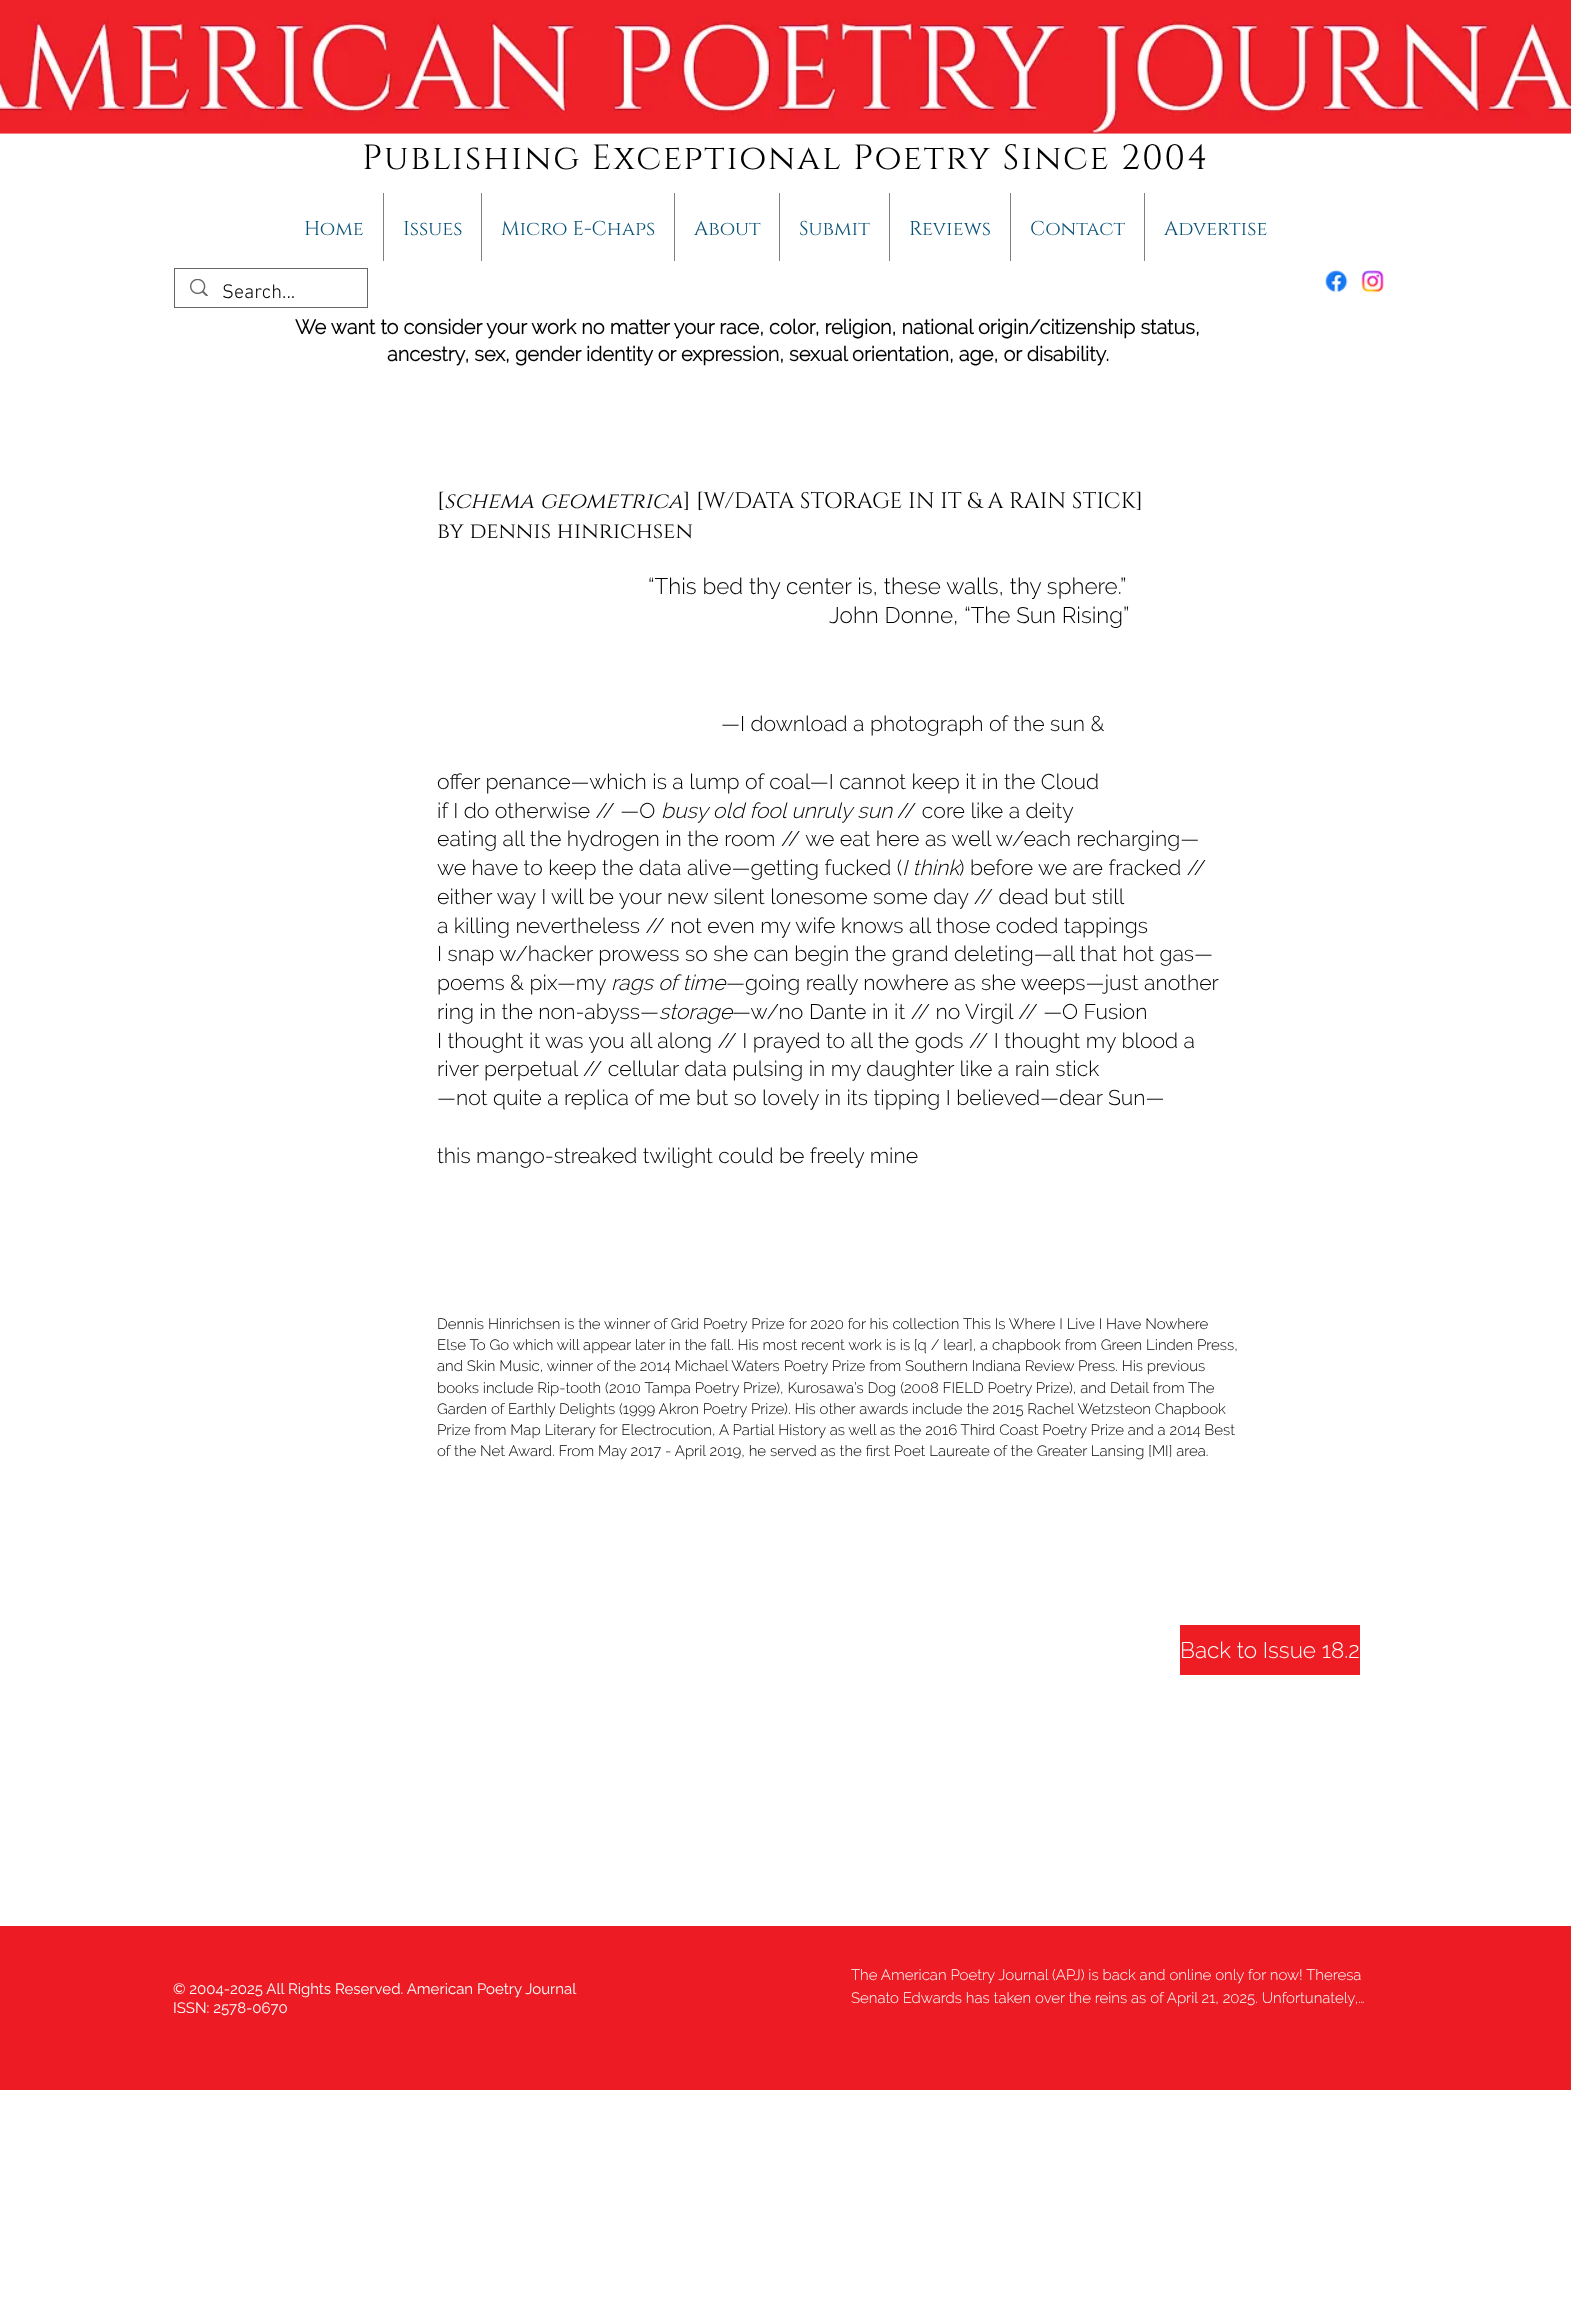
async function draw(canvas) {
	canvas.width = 1571;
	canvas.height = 2304;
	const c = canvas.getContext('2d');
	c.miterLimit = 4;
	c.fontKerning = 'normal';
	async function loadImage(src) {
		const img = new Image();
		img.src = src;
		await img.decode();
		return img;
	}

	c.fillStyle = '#fff';
	c.fillRect(0, 0, 1571, 2304);
	c.drawImage(await loadImage('img1.png'), 0, 0, 1571, 134);
	c.letterSpacing = '1.75px';
	c.font = '35px Cinzel';
	c.fillStyle = '#000';
	c.fillText('Publishing Exceptional Poetry Since 2004', 362, 169);
	c.letterSpacing = '0px';
	c.font = '20px Cinzel';
	c.fillStyle = '#0a5277';
	c.fillText('Home', 304, 235);
	c.fillStyle = '#808080';
	c.fillRect(383, 193, 1, 68);
	c.fillStyle = '#0a5277';
	c.fillText('Issues', 403, 235);
	c.fillStyle = '#808080';
	c.fillRect(481, 193, 1, 68);
	c.fillStyle = '#0a5277';
	c.fillText('Micro E-Chaps', 501, 235);
	c.fillStyle = '#808080';
	c.fillRect(674, 193, 1, 68);
	c.fillStyle = '#0a5277';
	c.fillText('About', 694, 235);
	c.fillStyle = '#808080';
	c.fillRect(779, 193, 1, 68);
	c.fillStyle = '#0a5277';
	c.fillText('Submit', 799, 235);
	c.fillStyle = '#808080';
	c.fillRect(889, 193, 1, 68);
	c.fillStyle = '#0a5277';
	c.fillText('Reviews', 909, 235);
	c.fillStyle = '#808080';
	c.fillRect(1010, 193, 1, 68);
	c.fillStyle = '#0a5277';
	c.fillText('Contact', 1030, 235);
	c.fillStyle = '#808080';
	c.fillRect(1144, 193, 1, 68);
	c.fillStyle = '#0a5277';
	c.fillText('Advertise', 1164, 235);
	c.strokeStyle = '#666';
	c.strokeRect(174.5, 268.5, 193, 39);
	c.drawImage(await loadImage('img2.png'), 190, 279, 18, 17);
	c.font = '300 20px "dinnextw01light"';
	c.fillStyle = '#000';
	c.fillText('Search...', 222, 298);
	c.drawImage(await loadImage('img3.png'), 1325, 270, 23, 23);
	c.drawImage(await loadImage('img4.png'), 1361, 270, 23, 23);
	c.font = 'bold 20px Raleway';
	c.fillText('We want to consider your work no matter your race, color, religion, national origin/citizenship status,', 295, 334);
	c.fillText('ancestry, sex, gender identity or expression, sexual orientation, age, or disability.', 387, 361);
	c.font = '22.5px Cinzel';
	c.fillText('[', 437, 508);
	c.font = 'italic 22.5px Cinzel';
	c.fillText('schema geometrica', 444, 508);
	c.font = '22.5px Cinzel';
	c.fillText('] [W/DATA STORAGE IN IT & A RAIN STICK]', 683, 508);
	c.fillText('by dennis hinrichsen', 437, 538);
	c.font = '300 22.5px Raleway';
	c.fillText('“This bed thy center is, these walls, thy sphere.”', 648, 594);
	c.fillText('John Donne, “The Sun Rising”', 829, 623);
	c.font = '300 21.25px Raleway';
	for (const [text, x, y] of [
		['—I download a photograph of the sun &', 721, 731],
		['offer penance—which is a lump of coal—I cannot keep it in the Cloud', 437, 789],
		['if I do otherwise // —O', 437, 818],
	]) {
		c.fillText(text, x, y);
	}
	c.font = 'italic 300 21.25px Raleway';
	c.fillText('busy old fool unruly sun', 661, 818);
	c.font = '300 21.25px Raleway';
	for (const [text, x, y] of [
		['// core like a deity', 897, 818],
		['eating all the hydrogen in the room // we eat here as well w/each recharging—', 437, 846],
		['we have to keep the data alive—getting fucked (', 437, 875],
	]) {
		c.fillText(text, x, y);
	}
	c.font = 'italic 300 21.25px Raleway';
	c.fillText('I think', 902, 875);
	c.font = '300 21.25px Raleway';
	for (const [text, x, y] of [
		[') before we are fracked //', 959, 875],
		['either way I will be your new silent lonesome some day // dead but still', 437, 904],
		['a killing nevertheless // not even my wife knows all those coded tappings', 437, 933],
		['I snap w/hacker prowess so she can begin the grand deleting—all that hot gas—', 437, 961],
		['poems & pix—my', 437, 990],
	]) {
		c.fillText(text, x, y);
	}
	c.font = 'italic 300 21.25px Raleway';
	c.fillText('rags of time', 611, 990);
	c.font = '300 21.25px Raleway';
	c.fillText('—going really nowhere as she weeps—just another', 726, 990);
	c.fillText('ring in the non-abyss—', 437, 1019);
	c.font = 'italic 300 21.25px Raleway';
	c.fillText('storage', 659, 1019);
	c.font = '300 21.25px Raleway';
	for (const [text, x, y] of [
		['—w/no Dante in it // no Virgil // —O Fusion', 732, 1019],
		['I thought it was you all along // I prayed to all the gods // I thought my blood a', 437, 1048],
		['river perpetual // cellular data pulsing in my daughter like a rain stick', 437, 1076],
		['—not quite a replica of me but so lovely in its tipping I believed—dear Sun—', 437, 1105],
		['this mango-streaked twilight could be freely mine', 437, 1163],
	]) {
		c.fillText(text, x, y);
	}
	c.font = '300 15px Raleway';
	for (const [text, x, y] of [
		['Dennis Hinrichsen is the winner of Grid Poetry Prize for 2020 for his collection This Is Where I Live I Have Nowhere', 437, 1329],
		['Else To Go which will appear later in the fall. His most recent work is is [q / lear], a chapbook from Green Linden Press,', 437, 1350],
		['and Skin Music, winner of the 2014 Michael Waters Poetry Prize from Southern Indiana Review Press. His previous', 437, 1371],
		['books include Rip-tooth (2010 Tampa Poetry Prize), Kurosawa’s Dog (2008 FIELD Poetry Prize), and Detail from The', 437, 1393],
		['Garden of Earthly Delights (1999 Akron Poetry Prize). His other awards include the 2015 Rachel Wetzsteon Chapbook', 437, 1414],
		['Prize from Map Literary for Electrocution, A Partial History as well as the 2016 Third Coast Poetry Prize and a 2014 Best', 437, 1435],
		['of the Net Award. From May 2017 - April 2019, he served as the first Poet Laureate of the Greater Lansing [MI] area.', 437, 1456],
	]) {
		c.fillText(text, x, y);
	}
	c.fillStyle = '#ed1d23';
	c.fillRect(1180, 1625, 180, 50);
	c.font = '300 22.5px Raleway';
	c.fillStyle = '#fff';
	c.fillText('Back to Issue 18.2', 1180, 1658);
	c.fillStyle = '#ed1c24';
	c.fillRect(0, 1926, 1571, 164);
	c.font = '15px Raleway';
	c.fillStyle = '#fff';
	c.fillText('© 2004-2025 All Rights Reserved. American Poetry Journal', 173, 1994);
	c.fillText('ISSN: 2578-0670', 173, 2013);
	c.font = '300 15px Raleway';
	c.fillText('The American Poetry Journal (APJ) is back and online only for now! Theresa', 851, 1980);
	c.fillText('Senato Edwards has taken over the reins as of April 21, 2025. Unfortunately,…', 851, 2003);
}

draw(document.querySelector('canvas'));
